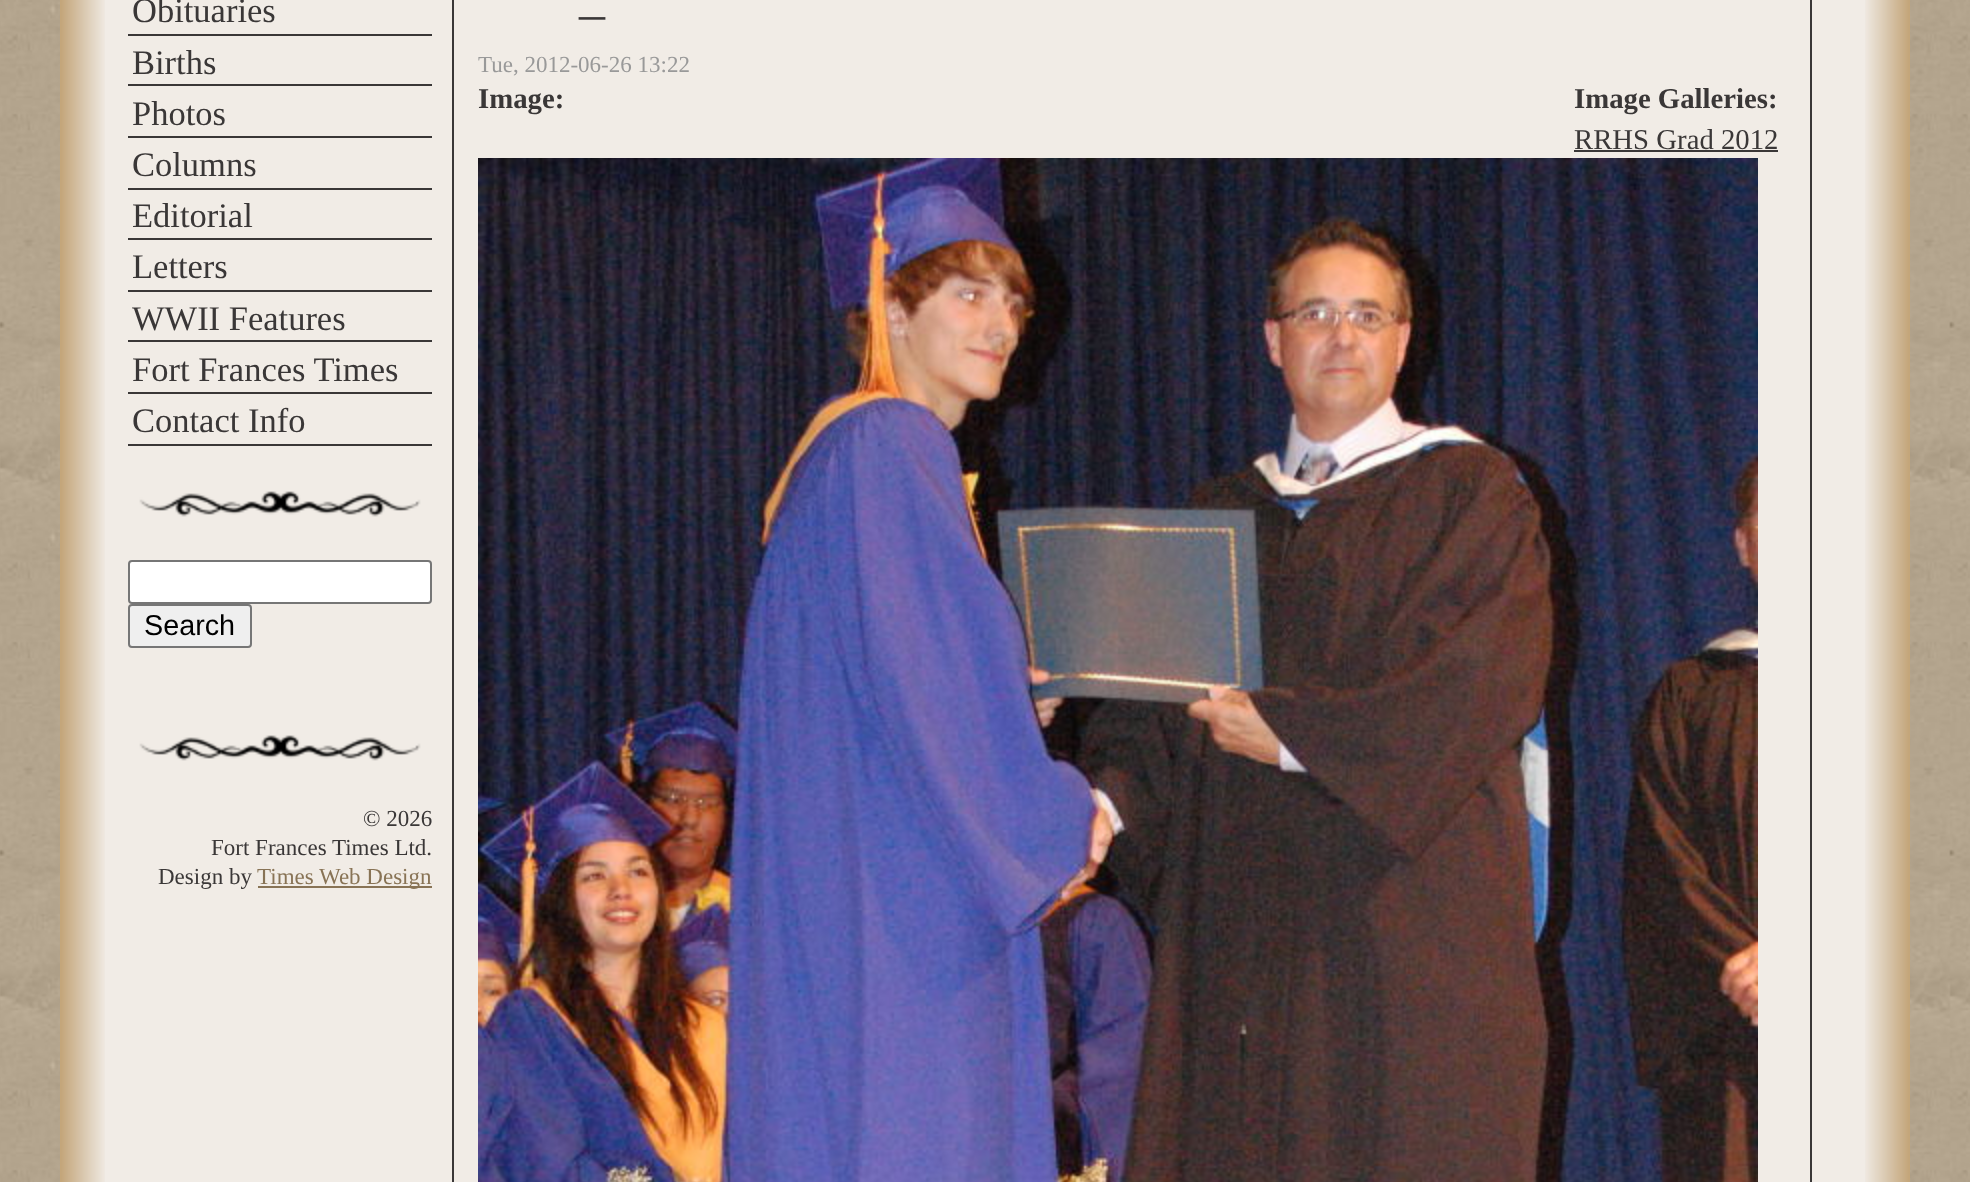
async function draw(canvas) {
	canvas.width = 1970;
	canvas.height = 1182;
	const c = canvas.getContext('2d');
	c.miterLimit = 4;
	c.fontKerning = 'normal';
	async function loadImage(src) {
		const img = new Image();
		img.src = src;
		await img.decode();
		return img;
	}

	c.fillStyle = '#fff';
	c.fillRect(0, 0, 1970, 1182);
	c.drawImage(await loadImage('img1.png'), 0, 0, 1970, 1182);
	c.fillStyle = '#f1ece6';
	c.fillRect(105, 0, 1760, 1182);
	c.drawImage(await loadImage('img2.png'), 60, 0, 45, 1182);
	c.drawImage(await loadImage('img3.png'), 1865, 0, 45, 1182);
	c.fillStyle = '#3a3737';
	c.fillRect(452, 0, 2, 1182);
	c.fillRect(128, 34, 304, 2);
	c.font = '34.5px Liberation Serif';
	c.fillText('Obituaries', 132, 22);
	c.fillRect(128, 84, 304, 2);
	c.fillText('Births', 132, 74);
	c.fillRect(128, 136, 304, 2);
	c.fillText('Photos', 132, 125);
	c.fillRect(128, 188, 304, 2);
	c.fillText('Columns', 132, 176);
	c.fillRect(128, 238, 304, 2);
	c.fillText('Editorial', 132, 227);
	c.fillRect(128, 290, 304, 2);
	c.fillText('Letters', 132, 278);
	c.fillRect(128, 340, 304, 2);
	c.fillText('WWII Features', 132, 330);
	c.fillRect(128, 392, 304, 2);
	c.fillText('Fort Frances Times', 132, 381);
	c.fillRect(128, 444, 304, 2);
	c.fillText('Contact Info', 132, 432);
	c.drawImage(await loadImage('img4.png'), 139, 491, 282, 26);
	c.fillStyle = '#fff';
	c.beginPath();
	c.roundRect(129, 561, 302, 42, 3);
	c.fill();
	c.strokeStyle = '#767676';
	c.lineWidth = 2;
	c.stroke();
	c.fillStyle = '#efefef';
	c.beginPath();
	c.roundRect(129, 605, 122, 42, 3);
	c.fill();
	c.stroke();
	c.font = '28.75px Liberation Sans';
	c.fillStyle = '#000';
	c.fillText('Search', 144, 635);
	c.drawImage(await loadImage('img4.png'), 139, 735, 282, 26);
	c.font = '23px Liberation Serif';
	c.fillStyle = '#3a3737';
	for (const [text, x, y] of [
		['© 2026', 363, 826],
		['Fort Frances Times Ltd.', 211, 855],
		['Design by', 158, 884],
	]) {
		c.fillText(text, x, y);
	}
	c.fillStyle = '#887355';
	c.fillRect(258, 886, 174, 2);
	c.fillText('Times Web Design', 257, 884);
	c.font = '52px Liberation Serif';
	c.fillStyle = '#3a3737';
	c.fillText('_', 579, 13);
	c.font = '23px Liberation Serif';
	c.fillStyle = '#999';
	c.fillText('Tue, 2012-06-26 13:22', 478, 72);
	c.font = 'bold 28.75px Liberation Serif';
	c.fillStyle = '#3a3737';
	c.fillText('Image:', 478, 108);
	c.drawImage(await loadImage('img5.png'), 478, 158, 1280, 1024);
	c.fillText('Image Galleries:', 1574, 108);
	c.font = '28.75px Liberation Serif';
	c.fillText('RRHS Grad 2012', 1574, 149);
	c.fillRect(1574, 150, 204, 2);
	c.fillRect(1810, 0, 2, 1182);
}

draw(document.querySelector('canvas'));
